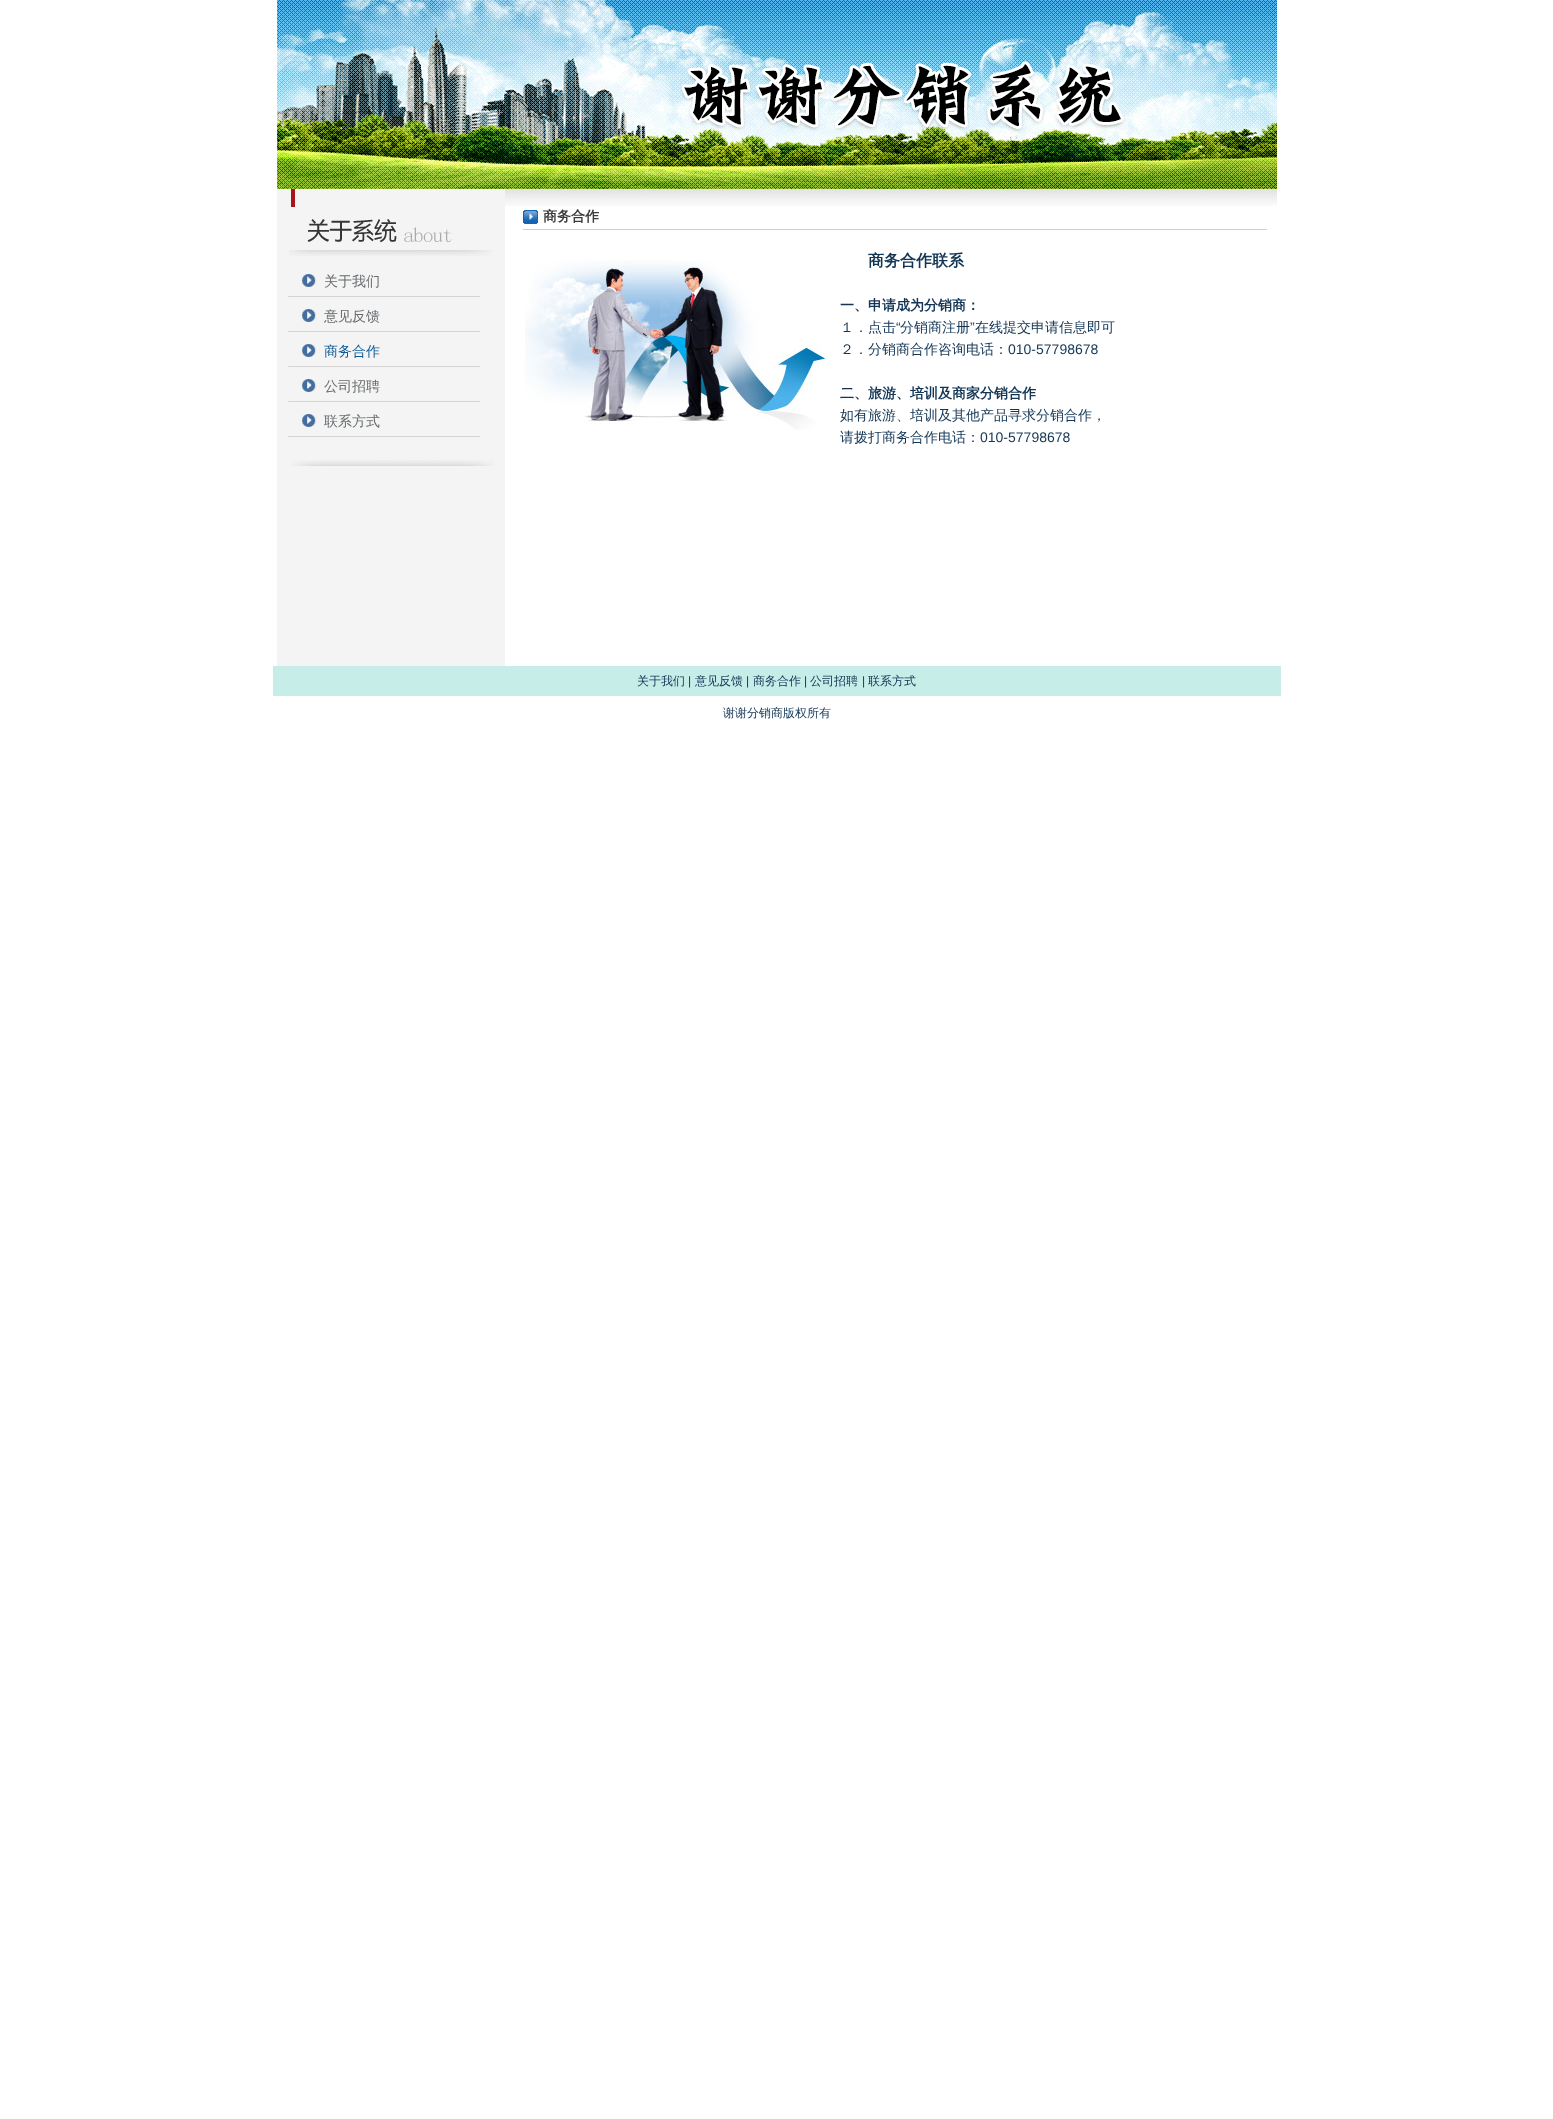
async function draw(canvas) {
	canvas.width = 1553;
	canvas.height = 2119;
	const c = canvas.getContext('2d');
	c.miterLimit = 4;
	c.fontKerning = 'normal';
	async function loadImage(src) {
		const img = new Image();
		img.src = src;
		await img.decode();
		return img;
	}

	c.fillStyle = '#fff';
	c.fillRect(0, 0, 1553, 2119);
	c.drawImage(await loadImage('img1.png'), 277, 0, 1000, 189);
	c.fillStyle = '#f4f4f4';
	c.fillRect(277, 189, 228, 477);
	c.drawImage(await loadImage('img2.png'), 289, 189, 203, 67);
	c.drawImage(await loadImage('img3.png'), 292, 460, 202, 6);
	c.drawImage(await loadImage('img4.png'), 288, 274, 192, 23);
	c.font = '500 14px WenQuanYi Zen Hei';
	c.fillStyle = '#676b6e';
	c.fillText('关于我们', 324, 286);
	c.drawImage(await loadImage('img4.png'), 288, 309, 192, 23);
	c.fillText('意见反馈', 324, 321);
	c.drawImage(await loadImage('img4.png'), 288, 344, 192, 23);
	c.fillStyle = '#0c5b98';
	c.fillText('商务合作', 324, 356);
	c.drawImage(await loadImage('img4.png'), 288, 379, 192, 23);
	c.fillStyle = '#676b6e';
	c.fillText('公司招聘', 324, 391);
	c.drawImage(await loadImage('img4.png'), 288, 414, 192, 23);
	c.fillText('联系方式', 324, 426);
	c.drawImage(await loadImage('img5.png'), 505, 189, 772, 17);
	c.drawImage(await loadImage('img6.png'), 523, 210, 15, 14);
	c.fillStyle = '#cfcfcf';
	c.fillRect(523, 229, 744, 1);
	c.font = 'bold 14px WenQuanYi Zen Hei';
	c.fillStyle = '#3c3b3b';
	c.fillText('商务合作', 543, 221);
	c.drawImage(await loadImage('img7.png'), 525, 260, 300, 170);
	c.font = 'bold 16px WenQuanYi Zen Hei';
	c.fillStyle = '#123555';
	c.fillText('商务合作联系', 868, 266);
	c.font = 'bold 14px WenQuanYi Zen Hei';
	c.fillText('一、申请成为分销商：', 840, 310);
	c.font = '500 14px WenQuanYi Zen Hei';
	c.fillText('１．点击', 840, 332);
	c.font = '14px Liberation Sans';
	c.fillText('“', 896, 332);
	c.font = '500 14px WenQuanYi Zen Hei';
	c.fillText('分销商注册', 900, 332);
	c.font = '14px Liberation Sans';
	c.fillText('”', 970, 332);
	c.font = '500 14px WenQuanYi Zen Hei';
	c.fillText('在线提交申请信息即可', 975, 332);
	c.fillText('２．分销商合作咨询电话：', 840, 354);
	c.font = '14px Liberation Sans';
	c.fillText('010-57798678', 1008, 354);
	c.font = 'bold 14px WenQuanYi Zen Hei';
	c.fillText('二、旅游、培训及商家分销合作', 840, 398);
	c.font = '500 14px WenQuanYi Zen Hei';
	c.fillText('如有旅游、培训及其他产品寻求分销合作，', 840, 420);
	c.fillText('请拨打商务合作电话：', 840, 442);
	c.font = '14px Liberation Sans';
	c.fillText('010-57798678', 980, 442);
	c.fillStyle = '#c6ede8';
	c.fillRect(273, 666, 1008, 30);
	c.font = '500 12px WenQuanYi Zen Hei';
	c.fillStyle = '#123555';
	c.fillText('关于我们', 637, 685);
	c.font = '12px Liberation Sans';
	c.fillText('|', 688, 685);
	c.font = '500 12px WenQuanYi Zen Hei';
	c.fillText('意见反馈', 695, 685);
	c.font = '12px Liberation Sans';
	c.fillText('|', 746, 685);
	c.font = '500 12px WenQuanYi Zen Hei';
	c.fillText('商务合作', 753, 685);
	c.font = '12px Liberation Sans';
	c.fillText('|', 804, 685);
	c.font = '500 12px WenQuanYi Zen Hei';
	c.fillText('公司招聘', 810, 685);
	c.font = '12px Liberation Sans';
	c.fillText('|', 862, 685);
	c.font = '500 12px WenQuanYi Zen Hei';
	c.fillText('联系方式', 868, 685);
	c.fillText('谢谢分销商版权所有', 723, 717);
}

draw(document.querySelector('canvas'));
